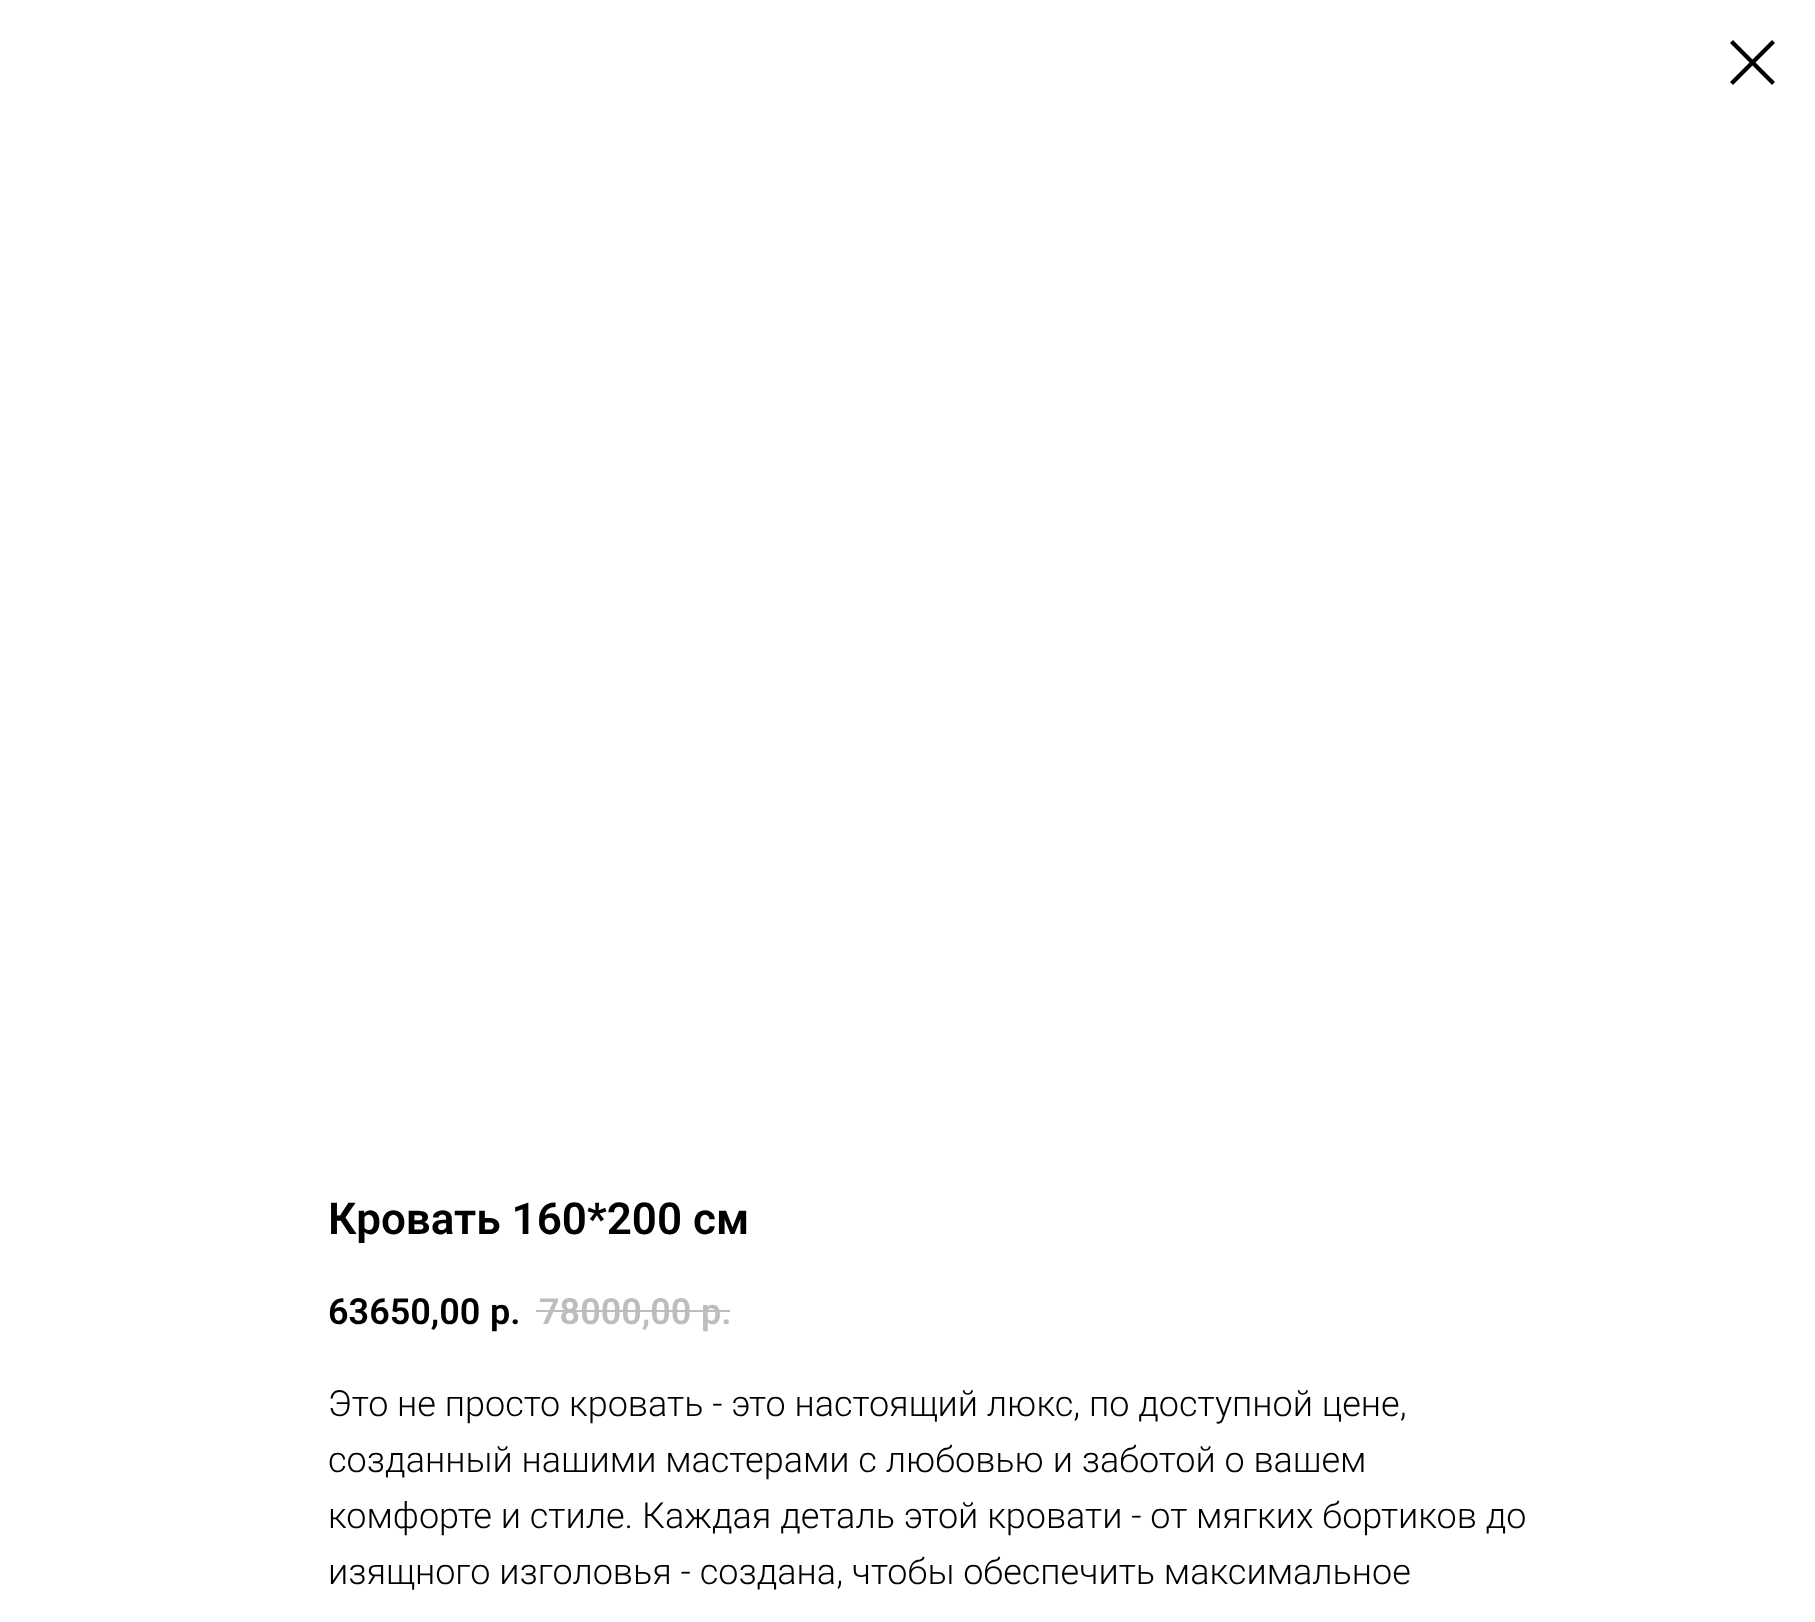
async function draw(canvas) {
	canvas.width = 1815;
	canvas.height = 1622;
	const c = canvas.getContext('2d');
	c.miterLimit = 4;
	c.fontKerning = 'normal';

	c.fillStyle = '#fff';
	c.fillRect(0, 0, 1815, 1622);
	c.fillStyle = '#000';
	c.beginPath();
	c.moveTo(1730, 43);
	c.lineTo(1733, 40);
	c.lineTo(1775, 82);
	c.lineTo(1772, 85);
	c.closePath();
	c.fill('evenodd');
	c.beginPath();
	c.moveTo(1772, 40);
	c.lineTo(1775, 43);
	c.lineTo(1733, 85);
	c.lineTo(1730, 82);
	c.closePath();
	c.fill('evenodd');
	c.font = '600 44px Roboto';
	c.fillText('Кровать 160*200 см', 328, 1234);
	c.font = '600 36px Roboto';
	c.fillText('63650,00', 328, 1324);
	c.fillText('р.', 490, 1324);
	c.fillStyle = '#bdbdbd';
	c.fillText('78000,00', 539, 1324);
	c.fillText('р.', 701, 1324);
	c.fillRect(536, 1310, 194, 2);
	c.font = '300 36px Roboto';
	c.fillStyle = '#000';
	for (const [text, x, y] of [
		['Это не просто кровать - это настоящий люкс, по доступной цене,', 328, 1416],
		['созданный нашими мастерами с любовью и заботой о вашем', 328, 1472],
		['комфорте и стиле. Каждая деталь этой кровати - от мягких бортиков до', 328, 1528],
		['изящного изголовья - создана, чтобы обеспечить максимальное', 328, 1584],
	]) {
		c.fillText(text, x, y);
	}
}

draw(document.querySelector('canvas'));
